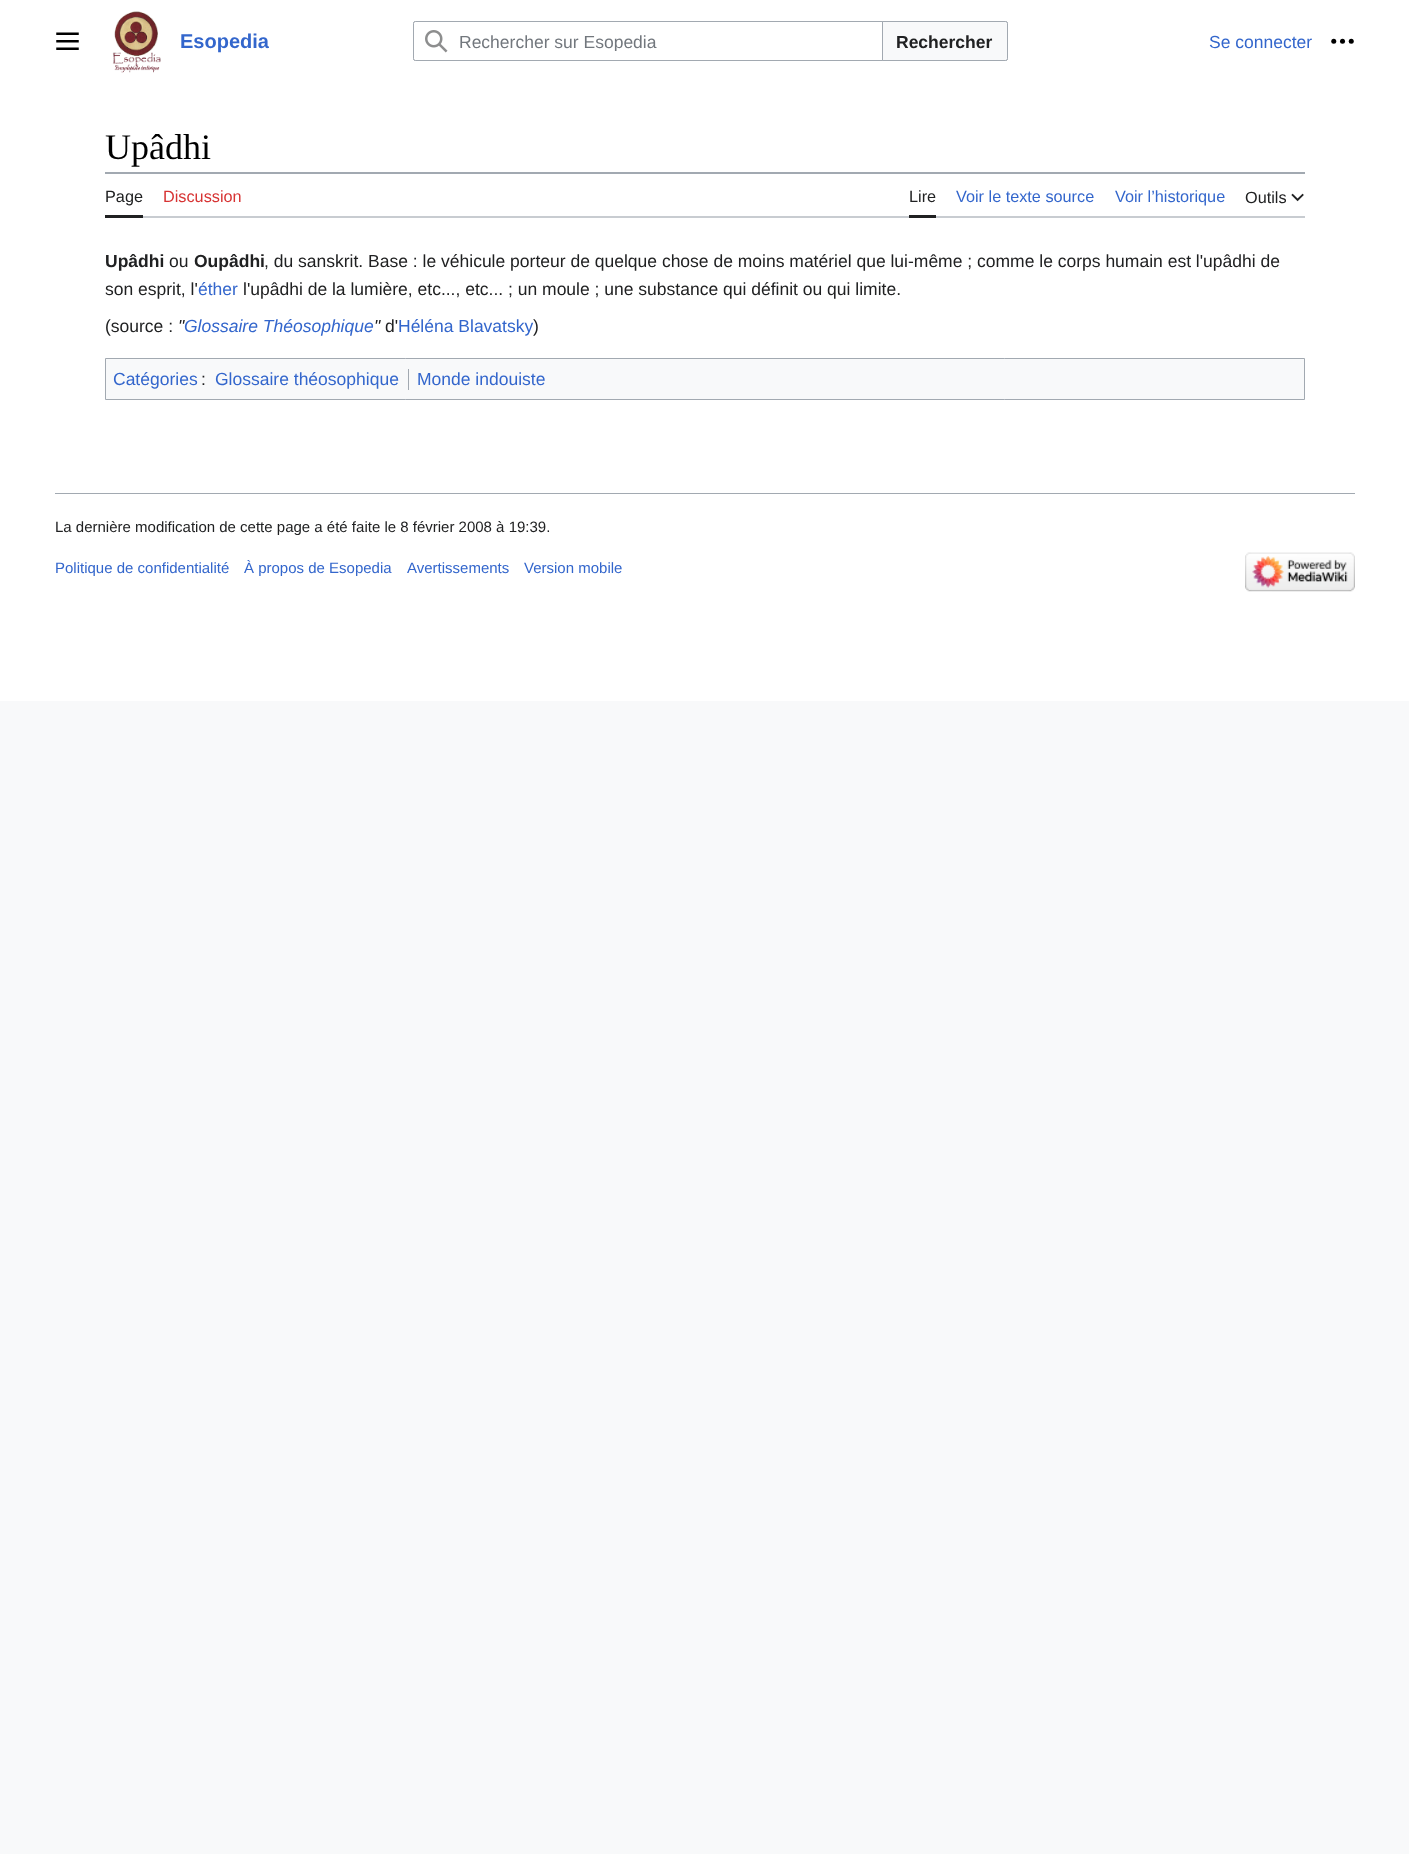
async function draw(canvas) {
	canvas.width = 1409;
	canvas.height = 1854;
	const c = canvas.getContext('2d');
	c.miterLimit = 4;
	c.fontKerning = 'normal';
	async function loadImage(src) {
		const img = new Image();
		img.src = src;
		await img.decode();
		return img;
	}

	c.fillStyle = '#f8f9fa';
	c.fillRect(0, 0, 1409, 1854);
	c.fillStyle = '#fff';
	c.fillRect(0, 0, 1409, 701);
	c.drawImage(await loadImage('img1.png'), 56, 32, 23, 18);
	c.drawImage(await loadImage('img2.png'), 112, 11, 49, 62);
	c.font = 'bold 20px Liberation Sans';
	c.fillStyle = '#36c';
	c.fillText('Esopedia', 180, 48);
	c.beginPath();
	c.roundRect(413.5, 21.5, 594, 39, 2);
	c.strokeStyle = '#a2a9b1';
	c.stroke();
	c.fillStyle = '#f8f9fa';
	c.beginPath();
	c.roundRect(881.5, 21.5, 126, 39, [0, 2, 2, 0]);
	c.fill();
	c.stroke();
	c.fillStyle = '#fff';
	c.beginPath();
	c.roundRect(413.5, 21.5, 469, 39, [2, 0, 0, 2]);
	c.fill();
	c.stroke();
	c.drawImage(await loadImage('img3.png'), 425, 30, 23, 23);
	c.save();
	c.beginPath();
	c.rect(459, 31, 412, 20);
	c.clip();
	c.font = '17.5px Liberation Sans';
	c.fillStyle = '#72777d';
	c.fillText('Rechercher sur Esopedia', 459, 48);
	c.restore();
	c.font = 'bold 17.5px Liberation Sans';
	c.fillStyle = '#202122';
	c.fillText('Rechercher', 896, 48);
	c.font = '17.5px Liberation Sans';
	c.fillStyle = '#36c';
	c.fillText('Se connecter', 1209, 48);
	c.drawImage(await loadImage('img4.png'), 1331, 38, 23, 6);
	c.fillStyle = '#a2a9b1';
	c.fillRect(105, 172, 1200, 2);
	c.font = '36px Liberation Serif';
	c.fillStyle = '#000';
	c.fillText('Upâdhi', 105, 159);
	c.fillStyle = '#c8ccd1';
	c.fillRect(143, 216, 1162, 2);
	c.fillStyle = '#202122';
	c.fillRect(105, 215, 38, 3);
	c.font = '16.25px Liberation Sans';
	c.fillText('Page', 105, 202);
	c.fillStyle = '#d73333';
	c.fillText('Discussion', 163, 202);
	c.fillStyle = '#202122';
	c.fillRect(909, 215, 27, 3);
	c.fillText('Lire', 909, 202);
	c.fillStyle = '#36c';
	c.fillText('Voir le texte source', 956, 202);
	c.fillText('Voir l’historique', 1115, 202);
	c.fillStyle = '#202122';
	c.fillText('Outils', 1245, 203);
	c.drawImage(await loadImage('img5.png'), 1291, 193, 13, 9);
	c.font = 'bold 17.5px Liberation Sans';
	c.fillText('Upâdhi', 105, 267);
	c.font = '17.5px Liberation Sans';
	c.fillText('ou', 169, 267);
	c.font = 'bold 17.5px Liberation Sans';
	c.fillText('Oupâdhi', 194, 267);
	c.font = '17.5px Liberation Sans';
	c.fillText(', du sanskrit. Base : le véhicule porteur de quelque chose de moins matériel que lui-même ; comme le corps humain est l\'upâdhi de', 264, 267);
	c.fillText('son esprit, l\'', 105, 295);
	c.fillStyle = '#36c';
	c.fillText('éther', 198, 295);
	c.fillStyle = '#202122';
	c.fillText('l\'upâdhi de la lumière, etc..., etc... ; un moule ; une substance qui définit ou qui limite.', 243, 295);
	c.fillText('(source :', 105, 332);
	c.font = 'italic 17.5px Liberation Sans';
	c.fillText('"', 178, 332);
	c.fillStyle = '#36c';
	c.fillText('Glossaire Théosophique', 184, 332);
	c.fillStyle = '#202122';
	c.fillText('"', 374, 332);
	c.font = '17.5px Liberation Sans';
	c.fillText('d\'', 385, 332);
	c.fillStyle = '#36c';
	c.fillText('Héléna Blavatsky', 398, 332);
	c.fillStyle = '#202122';
	c.fillText(')', 533, 332);
	c.fillStyle = '#f8f9fa';
	c.beginPath();
	c.rect(105.5, 358.5, 1199, 41);
	c.fill();
	c.stroke();
	c.fillStyle = '#36c';
	c.fillText('Catégories', 113, 385);
	c.fillStyle = '#202122';
	c.fillText(':', 201, 385);
	c.fillStyle = '#36c';
	c.fillText('Glossaire théosophique', 215, 385);
	c.fillStyle = '#a2a9b1';
	c.fillRect(408, 369, 1, 21);
	c.fillStyle = '#36c';
	c.fillText('Monde indouiste', 417, 385);
	c.fillStyle = '#a2a9b1';
	c.fillRect(55, 493, 1300, 1);
	c.font = '15px Liberation Sans';
	c.fillStyle = '#202122';
	c.fillText('La dernière modification de cette page a été faite le 8 février 2008 à 19:39.', 55, 532);
	c.fillStyle = '#36c';
	for (const [text, x, y] of [
		['Politique de confidentialité', 55, 573],
		['À propos de Esopedia', 244, 573],
		['Avertissements', 407, 573],
		['Version mobile', 524, 573],
	]) {
		c.fillText(text, x, y);
	}
	c.drawImage(await loadImage('img6.png'), 1245, 552, 110, 40);
}

draw(document.querySelector('canvas'));
